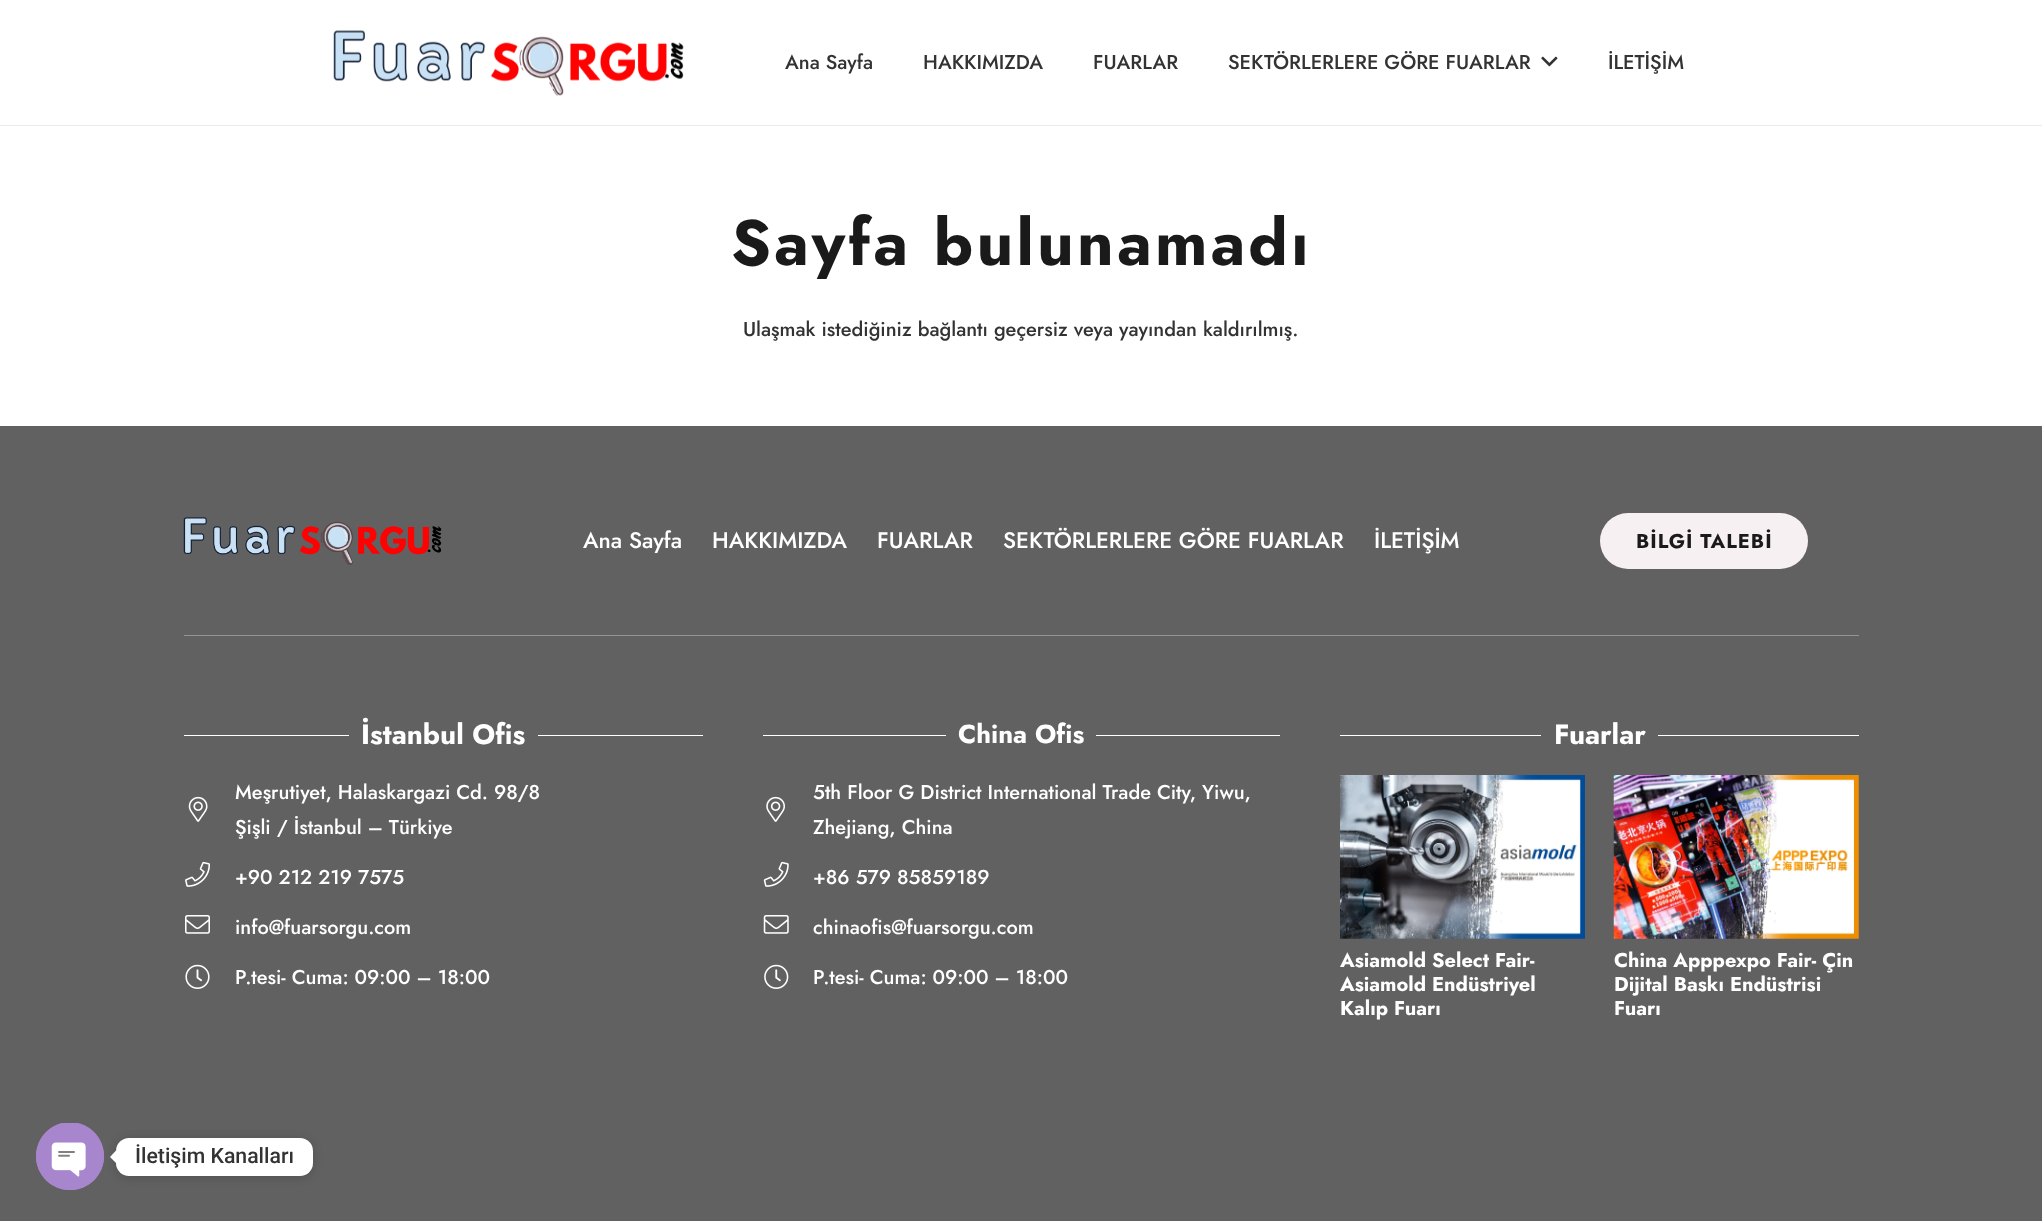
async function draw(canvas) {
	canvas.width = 2042;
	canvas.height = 1221;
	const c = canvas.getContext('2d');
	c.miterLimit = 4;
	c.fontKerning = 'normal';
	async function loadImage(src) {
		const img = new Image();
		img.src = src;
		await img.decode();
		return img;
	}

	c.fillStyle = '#fff';
	c.fillRect(0, 0, 2042, 1221);
	c.fillStyle = '#ebebeb';
	c.beginPath();
	c.moveTo(0, 125);
	c.lineTo(0, 126);
	c.lineTo(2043, 126);
	c.lineTo(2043, 1);
	c.lineTo(2042, 1);
	c.lineTo(2042, 125);
	c.closePath();
	c.fill();
	c.drawImage(await loadImage('img1.png'), 333, 30, 351, 66);
	c.font = '500 20px Jost';
	c.fillStyle = '#333';
	for (const [text, x, y] of [
		['Ana Sayfa', 785, 69],
		['HAKKIMIZDA', 923, 69],
		['FUARLAR', 1093, 69],
		['SEKTÖRLERLERE GÖRE FUARLAR', 1228, 69],
	]) {
		c.fillText(text, x, y);
	}
	c.drawImage(await loadImage('img2.png'), 1541, 56, 17, 11);
	c.fillText('İLETİŞİM', 1608, 69);
	c.letterSpacing = '3.25px';
	c.font = 'bold 64px Jost';
	c.fillStyle = '#1a1a1a';
	c.fillText('Sayfa bulunamadı', 731, 265);
	c.letterSpacing = '0px';
	c.font = '500 20px Jost';
	c.fillStyle = '#333';
	c.fillText('Ulaşmak istediğiniz bağlantı geçersiz veya yayından kaldırılmış.', 743, 336);
	c.fillStyle = '#616161';
	c.fillRect(0, 426, 2042, 795);
	c.drawImage(await loadImage('img3.png'), 183, 517, 259, 48);
	c.font = '500 22.5px Jost';
	c.fillStyle = '#fff';
	for (const [text, x, y] of [
		['Ana Sayfa', 583, 548],
		['HAKKIMIZDA', 712, 548],
		['FUARLAR', 877, 548],
		['SEKTÖRLERLERE GÖRE FUARLAR', 1003, 548],
		['İLETİŞİM', 1374, 548],
	]) {
		c.fillText(text, x, y);
	}
	c.fillStyle = '#f7f0f2';
	c.beginPath();
	c.roundRect(1600, 513, 208, 56, 28);
	c.fill();
	c.letterSpacing = '1px';
	c.font = 'bold 20px Jost';
	c.fillStyle = '#1a1a1a';
	c.fillText('BİLGİ TALEBİ', 1636, 548);
	c.fillStyle = '#959595';
	c.fillRect(184, 635, 1675, 1);
	c.fillStyle = '#fff';
	c.fillRect(184, 735, 165, 1);
	c.letterSpacing = '0px';
	c.font = 'bold 28px Jost';
	c.fillText('İstanbul Ofis', 361, 744);
	c.fillRect(538, 735, 165, 1);
	c.drawImage(await loadImage('img4.png'), 188, 796, 20, 26);
	c.font = '500 20px Jost';
	c.fillText('Meşrutiyet, Halaskargazi Cd. 98/8', 235, 799);
	c.fillText('Şişli / İstanbul – Türkiye', 235, 834);
	c.drawImage(await loadImage('img5.png'), 185, 861, 25, 26);
	c.fillText('+90 212 219 7575', 235, 884);
	c.drawImage(await loadImage('img6.png'), 185, 915, 25, 19);
	c.fillText('info@fuarsorgu.com', 235, 934);
	c.drawImage(await loadImage('img7.png'), 185, 964, 25, 25);
	c.fillText('P.tesi- Cuma: 09:00 – 18:00', 235, 984);
	c.fillRect(763, 735, 183, 1);
	c.font = 'bold 26px Jost';
	c.fillText('China Ofis', 958, 743);
	c.fillRect(1096, 735, 184, 1);
	c.drawImage(await loadImage('img8.png'), 766, 796, 19, 26);
	c.font = '500 20px Jost';
	c.fillText('5th Floor G District International Trade City, Yiwu,', 813, 799);
	c.fillText('Zhejiang, China', 813, 834);
	c.drawImage(await loadImage('img9.png'), 763, 861, 26, 26);
	c.fillText('+86 579 85859189', 813, 884);
	c.drawImage(await loadImage('img10.png'), 763, 915, 26, 19);
	c.fillText('chinaofis@fuarsorgu.com', 813, 934);
	c.drawImage(await loadImage('img11.png'), 764, 964, 25, 25);
	c.fillText('P.tesi- Cuma: 09:00 – 18:00', 813, 984);
	c.fillRect(1340, 735, 201, 1);
	c.font = 'bold 28px Jost';
	c.fillText('Fuarlar', 1554, 744);
	c.fillRect(1658, 735, 201, 1);
	c.drawImage(await loadImage('img12.png'), 1340, 775, 245, 164);
	c.font = 'bold 20px Jost';
	for (const [text, x, y] of [
		['Asiamold Select Fair-', 1340, 967],
		['Asiamold Endüstriyel', 1340, 991],
		['Kalıp Fuarı', 1340, 1015],
	]) {
		c.fillText(text, x, y);
	}
	c.drawImage(await loadImage('img13.png'), 1613, 775, 246, 164);
	for (const [text, x, y] of [
		['China Apppexpo Fair- Çin', 1614, 967],
		['Dijital Baskı Endüstrisi', 1614, 991],
		['Fuarı', 1614, 1015],
	]) {
		c.fillText(text, x, y);
	}
	c.fillStyle = '#00000026';
	c.filter = 'blur(5px)';
	c.beginPath();
	c.roundRect(116, 1139, 197, 39, 13);
	c.fill();
	c.filter = 'none';
	c.fillStyle = '#a886cd';
	c.beginPath();
	c.roundRect(36, 1123, 68, 67, 33.5);
	c.fill();
	c.drawImage(await loadImage('img14.png'), 36, 1123, 68, 67);
	c.fillStyle = '#fff';
	c.beginPath();
	c.roundRect(116, 1138, 197, 38, 13);
	c.fill();
	c.beginPath();
	c.moveTo(116, 1150.5);
	c.lineTo(116, 1163);
	c.lineTo(110, 1157);
	c.closePath();
	c.fill();
	c.font = '500 21.25px Roboto';
	c.fillStyle = '#333';
	c.fillText('İletişim Kanalları', 135, 1163);
}

draw(document.querySelector('canvas'));
